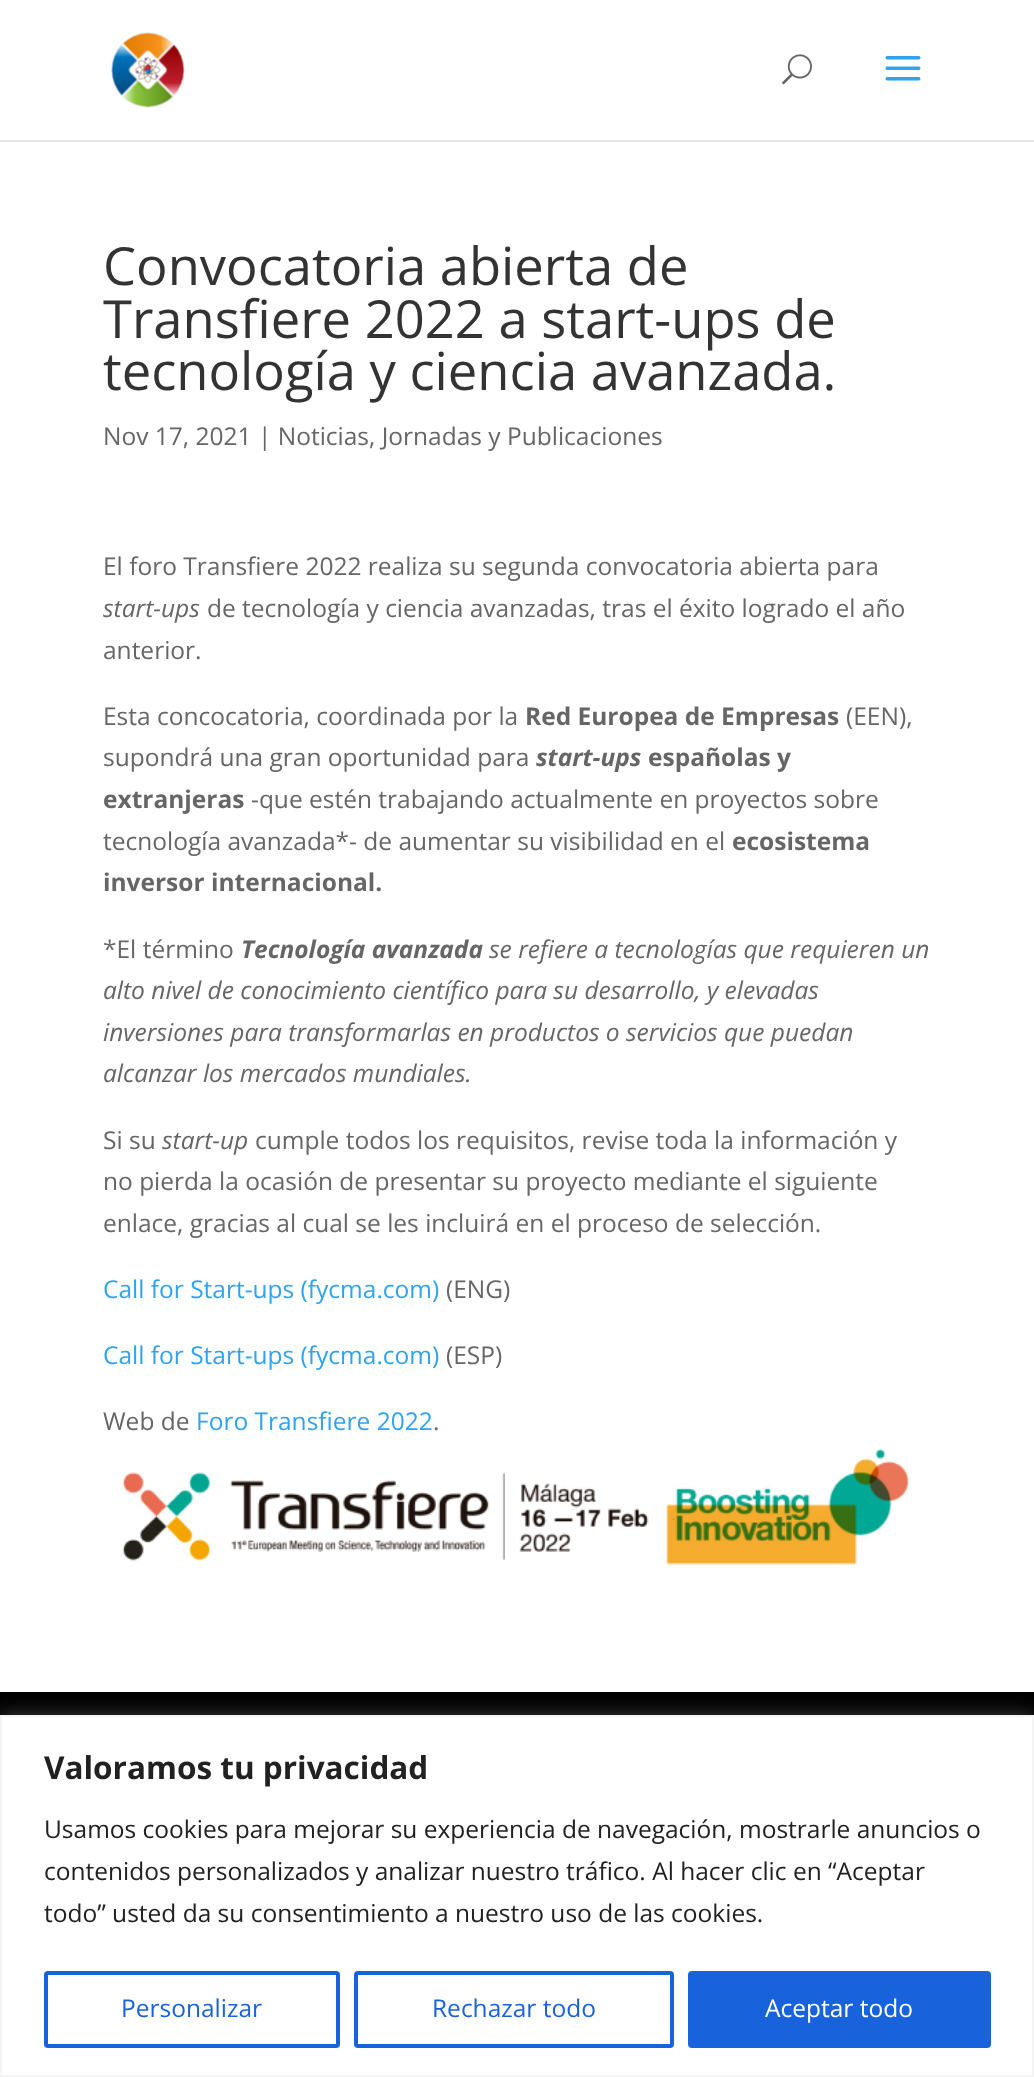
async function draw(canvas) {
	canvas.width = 1034;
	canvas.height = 2077;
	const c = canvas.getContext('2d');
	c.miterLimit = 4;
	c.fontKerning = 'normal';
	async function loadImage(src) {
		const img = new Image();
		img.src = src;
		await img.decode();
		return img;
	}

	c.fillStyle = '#fff';
	c.fillRect(0, 0, 1034, 2077);
	c.fillStyle = '#e6e6e6';
	c.fillRect(0, 140, 1034, 2);
	c.drawImage(await loadImage('img1.png'), 111, 32, 74, 76);
	c.drawImage(await loadImage('img2.png'), 782, 54, 30, 31);
	c.drawImage(await loadImage('img3.png'), 885, 56, 36, 25);
	c.font = '52.5px Open Sans';
	c.fillStyle = '#333';
	for (const [text, x, y] of [
		['Convocatoria abierta de', 103, 285],
		['Transfiere 2022 a start-ups de', 103, 338],
		['tecnología y ciencia avanzada.', 103, 390],
	]) {
		c.fillText(text, x, y);
	}
	c.font = '24.5px Open Sans';
	c.fillStyle = '#666';
	c.fillText('Nov 17, 2021 | Noticias, Jornadas y Publicaciones', 103, 445);
	c.fillText('El foro Transfiere 2022 realiza su segunda convocatoria abierta para', 103, 575);
	c.font = 'italic 24.5px Open Sans';
	c.fillText('start-ups', 103, 617);
	c.font = '24.5px Open Sans';
	for (const [text, x, y] of [
		['de tecnología y ciencia avanzadas, tras el éxito logrado el año', 207, 617],
		['anterior.', 103, 659],
		['Esta concocatoria, coordinada por la', 103, 725],
	]) {
		c.fillText(text, x, y);
	}
	c.font = 'bold 24.5px Open Sans';
	c.fillText('Red Europea de Empresas', 525, 725);
	c.font = '24.5px Open Sans';
	c.fillText('(EEN),', 846, 725);
	c.fillText('supondrá una gran oportunidad para', 103, 766);
	c.font = 'italic bold 24.5px Open Sans';
	c.fillText('start-ups', 536, 766);
	c.font = 'bold 24.5px Open Sans';
	c.fillText('españolas y', 648, 766);
	c.fillText('extranjeras', 103, 808);
	c.font = '24.5px Open Sans';
	c.fillText('-que estén trabajando actualmente en proyectos sobre', 251, 808);
	c.fillText('tecnología avanzada*- de aumentar su visibilidad en el', 103, 850);
	c.font = 'bold 24.5px Open Sans';
	c.fillText('ecosistema', 732, 850);
	c.fillText('inversor internacional.', 103, 891);
	c.font = '24.5px Open Sans';
	c.fillText('*El término', 103, 958);
	c.font = 'italic bold 24.5px Open Sans';
	c.fillText('Tecnología avanzada', 241, 958);
	c.font = 'italic 24.5px Open Sans';
	for (const [text, x, y] of [
		['se refiere a tecnologías que requieren un', 489, 958],
		['alto nivel de conocimiento científico para su desarrollo, y elevadas', 103, 999],
		['inversiones para transformarlas en productos o servicios que puedan', 103, 1041],
		['alcanzar los mercados mundiales.', 103, 1082],
	]) {
		c.fillText(text, x, y);
	}
	c.font = '24.5px Open Sans';
	c.fillText('Si su', 103, 1149);
	c.font = 'italic 24.5px Open Sans';
	c.fillText('start-up', 162, 1149);
	c.font = '24.5px Open Sans';
	for (const [text, x, y] of [
		['cumple todos los requisitos, revise toda la información y', 255, 1149],
		['no pierda la ocasión de presentar su proyecto mediante el siguiente', 103, 1190],
		['enlace, gracias al cual se les incluirá en el proceso de selección.', 103, 1232],
	]) {
		c.fillText(text, x, y);
	}
	c.fillStyle = '#2ea3f2';
	c.fillText('Call for Start-ups (fycma.com)', 103, 1298);
	c.fillStyle = '#666';
	c.fillText('(ENG)', 446, 1298);
	c.fillStyle = '#2ea3f2';
	c.fillText('Call for Start-ups (fycma.com)', 103, 1364);
	c.fillStyle = '#666';
	c.fillText('(ESP)', 446, 1364);
	c.fillText('Web de', 103, 1430);
	c.fillStyle = '#2ea3f2';
	c.fillText('Foro Transfiere 2022', 196, 1430);
	c.fillStyle = '#666';
	c.fillText('.', 433, 1430);
	c.drawImage(await loadImage('img4.png'), 122, 1448, 788, 117);
	c.fillStyle = '#000';
	c.fillRect(0, 1692, 1034, 23);
	c.fillStyle = '#acabab4d';
	c.filter = 'blur(9px)';
	c.beginPath();
	c.rect(0, 1713, 1034, 363);
	c.fill();
	c.filter = 'none';
	c.fillStyle = '#fff';
	c.beginPath();
	c.rect(1, 1716, 1032, 360);
	c.fill();
	c.strokeStyle = '#f4f4f4';
	c.lineWidth = 2;
	c.stroke();
	c.font = 'bold 31.5px Open Sans';
	c.fillStyle = '#212121';
	c.fillText('Valoramos tu privacidad', 44, 1779);
	c.font = '24.5px Open Sans';
	for (const [text, x, y] of [
		['Usamos cookies para mejorar su experiencia de navegación, mostrarle anuncios o', 44, 1838],
		['contenidos personalizados y analizar nuestro tráfico. Al hacer clic en “Aceptar', 44, 1880],
		['todo” usted da su consentimiento a nuestro uso de las cookies.', 44, 1922],
	]) {
		c.fillText(text, x, y);
	}
	c.beginPath();
	c.roundRect(46, 1973, 292, 73, 2);
	c.strokeStyle = '#1863dc';
	c.lineWidth = 4;
	c.stroke();
	c.fillStyle = '#1863dc';
	c.fillText('Personalizar', 121, 2017);
	c.beginPath();
	c.roundRect(356, 1973, 316, 73, 2);
	c.stroke();
	c.fillText('Rechazar todo', 432, 2017);
	c.beginPath();
	c.roundRect(690, 1973, 299, 73, 2);
	c.fill();
	c.stroke();
	c.fillStyle = '#fff';
	c.fillText('Aceptar todo', 765, 2017);
}

draw(document.querySelector('canvas'));
